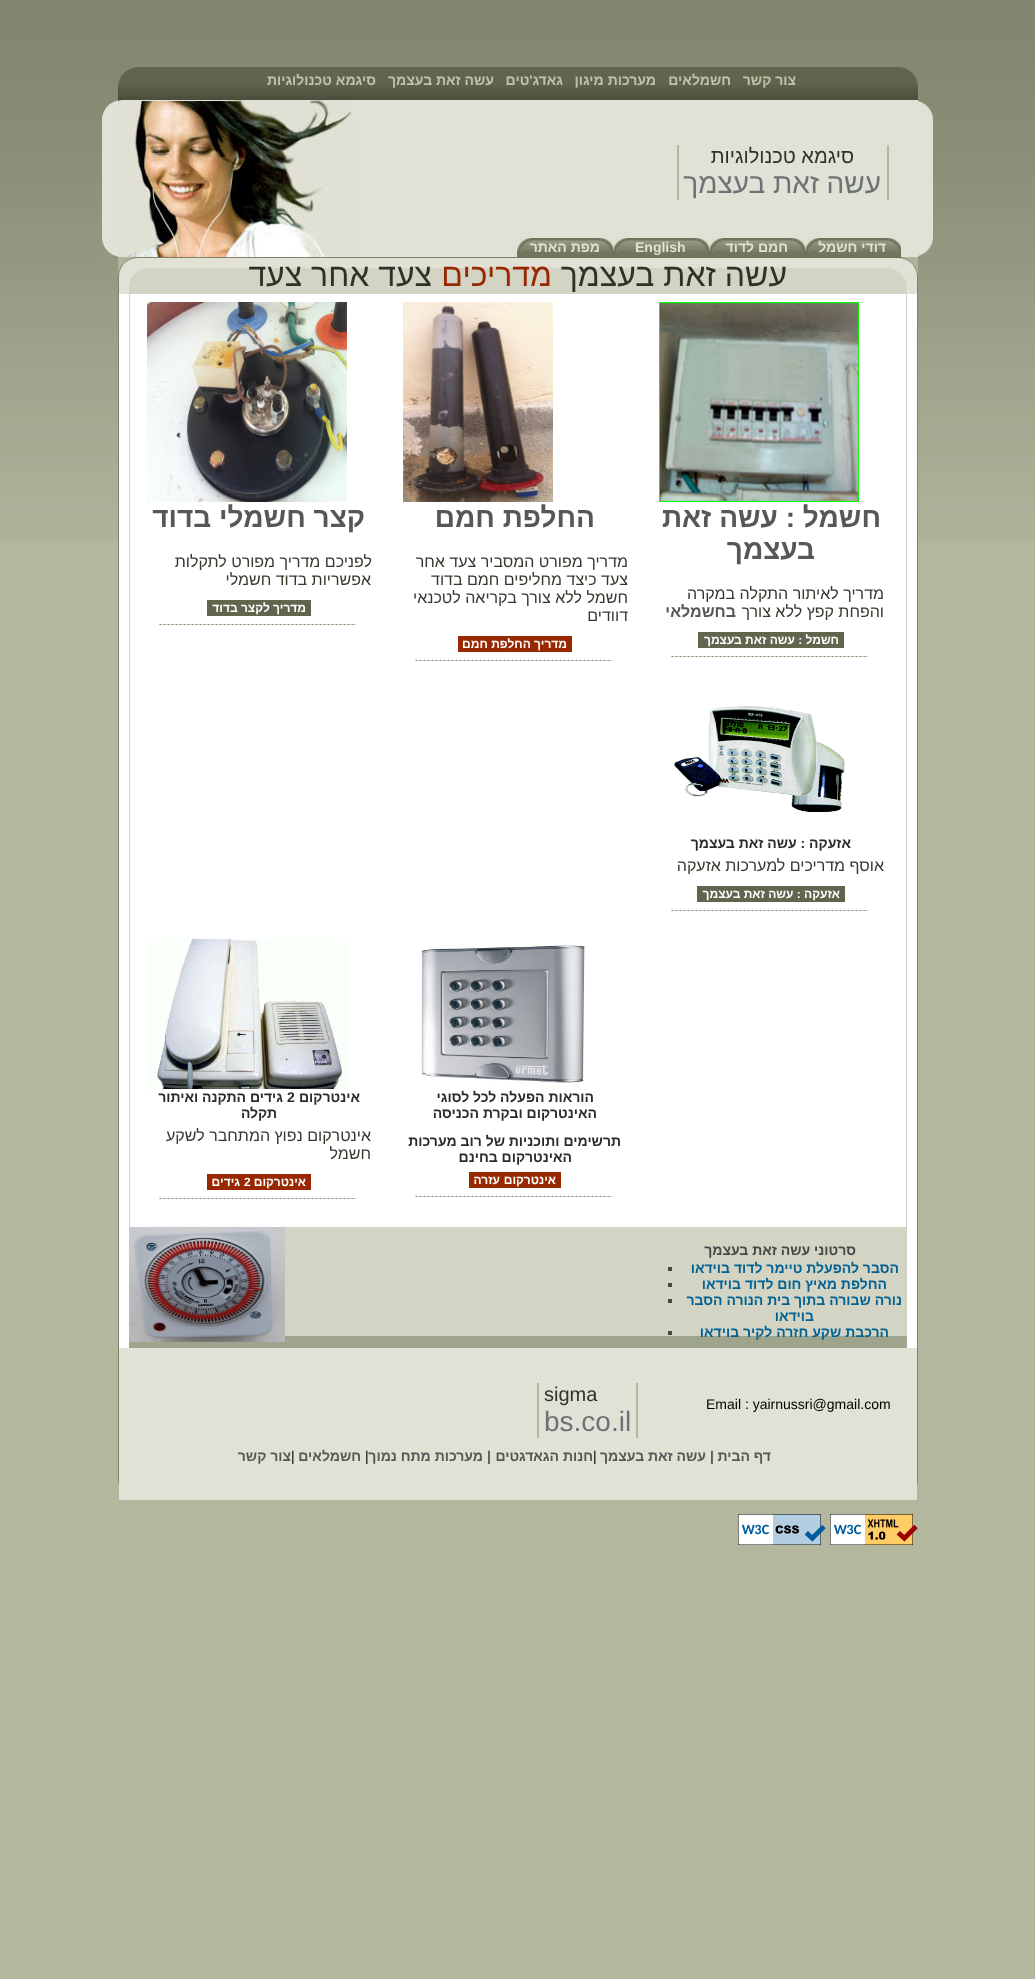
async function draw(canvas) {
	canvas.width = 1035;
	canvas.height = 1979;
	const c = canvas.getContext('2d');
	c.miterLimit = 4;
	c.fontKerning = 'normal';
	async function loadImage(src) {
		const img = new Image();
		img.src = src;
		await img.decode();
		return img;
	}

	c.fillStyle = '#b3b79e';
	c.fillRect(0, 0, 1035, 1979);
	c.drawImage(await loadImage('img1.png'), 0, 0, 1035, 540);
	c.drawImage(await loadImage('img2.png'), 118, 67, 800, 33);
	c.drawImage(await loadImage('img3.png'), 118, 67, 18, 18);
	c.drawImage(await loadImage('img4.png'), 900, 67, 18, 18);
	c.direction = 'rtl';
	c.font = 'bold 14px Liberation Sans';
	c.fillStyle = '#c0c4ab';
	for (const [text, x, y] of [
		['צור קשר', 796, 85],
		['חשמלאים', 731, 85],
		['מערכות מיגון', 656, 85],
		['גאדג\'טים', 563, 85],
		['עשה זאת בעצמך', 494, 85],
		['סיגמא טכנולוגיות', 376, 85],
	]) {
		c.fillText(text, x, y);
	}
	c.fillStyle = '#e1e1d5';
	c.fillRect(353, 100, 565, 157);
	c.drawImage(await loadImage('img5.png'), 918, 101, 15, 155);
	c.fillStyle = '#b3b79e';
	c.fillRect(887, 145, 2, 55);
	c.fillRect(677, 145, 2, 55);
	c.font = '20px Liberation Sans';
	c.fillStyle = '#303228';
	c.fillText('סיגמא טכנולוגיות', 854, 163);
	c.font = '28px Liberation Sans';
	c.fillStyle = '#6c7376';
	c.fillText('עשה', 881, 193);
	c.fillText('זאת בעצמך', 819, 193);
	c.drawImage(await loadImage('img6.png'), 118, 100, 235, 157);
	c.drawImage(await loadImage('img7.png'), 102, 100, 16, 157);
	c.drawImage(await loadImage('img11.png'), 118, 257, 800, 37);
	c.drawImage(await loadImage('img8.png'), 805, 238, 96, 20);
	c.font = 'bold 14px Liberation Sans';
	c.fillStyle = '#e1e1d5';
	c.fillText('דודי חשמל', 886, 252);
	c.drawImage(await loadImage('img8.png'), 709, 238, 96, 20);
	c.fillText('חמם לדוד', 788, 252);
	c.drawImage(await loadImage('img8.png'), 613, 238, 96, 20);
	c.direction = 'ltr';
	c.fillText('English', 635, 252);
	c.drawImage(await loadImage('img8.png'), 517, 238, 96, 20);
	c.direction = 'rtl';
	c.fillText('מפת האתר', 600, 252);
	c.drawImage(await loadImage('img9.png'), 118, 294, 800, 1186);
	c.drawImage(await loadImage('img10.png'), 118, 1480, 800, 20);
	c.font = '32px Liberation Sans';
	c.fillStyle = '#303228';
	c.fillText('עשה זאת בעצמך', 787, 286);
	c.fillStyle = '#982801';
	c.fillText('מדריכים', 552, 286);
	c.fillStyle = '#303228';
	c.fillText('צעד אחר צעד', 432, 286);
	c.drawImage(await loadImage('img12.png'), 659, 302, 200, 200);
	c.font = 'bold 28px Liberation Sans';
	c.fillStyle = '#575757';
	c.fillText('חשמל : עשה זאת', 881, 527);
	c.fillText('בעצמך', 815, 559);
	c.font = '16px Liberation Sans';
	c.fillStyle = '#36382e';
	c.fillText('מדריך לאיתור התקלה במקרה', 884, 599);
	c.fillText('והפחת קפץ ללא צורך', 884, 617);
	c.font = 'bold 16px Liberation Sans';
	c.fillStyle = '#575757';
	c.fillText('בחשמלאי', 736, 617);
	c.fillStyle = '#60654e';
	c.fillRect(698, 632, 146, 16);
	c.font = 'bold 12px Liberation Sans';
	c.fillStyle = '#fff';
	c.fillText('חשמל : עשה זאת בעצמך', 839, 644);
	c.drawImage(await loadImage('img13.png'), 671, 656, 197, 1);
	c.drawImage(await loadImage('img14.png'), 403, 302, 150, 200);
	c.font = 'bold 28px Liberation Sans';
	c.fillStyle = '#575757';
	c.fillText('החלפת חמם', 595, 527);
	c.font = '16px Liberation Sans';
	c.fillStyle = '#36382e';
	for (const [text, x, y] of [
		['מדריך מפורט המסביר צעד אחר', 628, 567],
		['צעד כיצד מחליפים חמם בדוד', 628, 585],
		['חשמל ללא צורך בקריאה לטכנאי', 628, 603],
		['דוודים', 628, 621],
	]) {
		c.fillText(text, x, y);
	}
	c.fillStyle = '#982801';
	c.fillRect(458, 636, 114, 16);
	c.font = 'bold 12px Liberation Sans';
	c.fillStyle = '#fff';
	c.fillText('מדריך החלפת חמם', 567, 648);
	c.drawImage(await loadImage('img13.png'), 415, 660, 197, 1);
	c.drawImage(await loadImage('img15.png'), 147, 302, 200, 200);
	c.font = 'bold 28px Liberation Sans';
	c.fillStyle = '#575757';
	c.fillText('קצר חשמלי בדוד', 365, 527);
	c.font = '16px Liberation Sans';
	c.fillStyle = '#36382e';
	c.fillText('לפניכם מדריך מפורט לתקלות', 372, 567);
	c.fillText('אפשריות בדוד חשמלי', 371, 585);
	c.fillStyle = '#60654e';
	c.fillRect(207, 600, 104, 16);
	c.font = 'bold 12px Liberation Sans';
	c.fillStyle = '#fff';
	c.fillText('מדריך לקצר בדוד', 306, 612);
	c.drawImage(await loadImage('img13.png'), 159, 624, 197, 1);
	c.drawImage(await loadImage('img16.png'), 674, 706, 172, 107);
	c.font = 'bold 14px Liberation Sans';
	c.fillStyle = '#2b2b2b';
	c.fillText('אזעקה : עשה זאת בעצמך', 851, 848);
	c.font = '16px Liberation Sans';
	c.fillStyle = '#36382e';
	c.fillText('אוסף מדריכים למערכות אזעקה', 884, 871);
	c.fillStyle = '#60654e';
	c.fillRect(697, 886, 148, 16);
	c.font = 'bold 12px Liberation Sans';
	c.fillStyle = '#fff';
	c.fillText('אזעקה : עשה זאת בעצמך', 840, 898);
	c.drawImage(await loadImage('img13.png'), 671, 910, 197, 1);
	c.drawImage(await loadImage('img17.png'), 421, 945, 164, 138);
	c.font = 'bold 14px Liberation Sans';
	c.fillStyle = '#2b2b2b';
	for (const [text, x, y] of [
		['הוראות הפעלה לכל לסוגי', 594, 1102],
		['האינטרקום ובקרת הכניסה', 597, 1118],
		['תרשימים ותוכניות של רוב מערכות', 621, 1146],
		['האינטרקום בחינם', 572, 1162],
	]) {
		c.fillText(text, x, y);
	}
	c.fillStyle = '#982801';
	c.fillRect(469, 1172, 92, 16);
	c.font = 'bold 12px Liberation Sans';
	c.fillStyle = '#fff';
	c.fillText('אינטרקום', 556, 1184);
	c.fillText('עזרה', 500, 1184);
	c.drawImage(await loadImage('img13.png'), 415, 1196, 197, 1);
	c.drawImage(await loadImage('img18.png'), 147, 939, 200, 150);
	c.font = 'bold 14px Liberation Sans';
	c.fillStyle = '#2b2b2b';
	c.fillText('אינטרקום', 360, 1102);
	c.direction = 'ltr';
	c.fillText('2', 287, 1102);
	c.direction = 'rtl';
	c.fillText('גידים התקנה ואיתור', 283, 1102);
	c.fillText('תקלה', 277, 1118);
	c.font = '16px Liberation Sans';
	c.fillStyle = '#36382e';
	c.fillText('אינטרקום נפוץ המתחבר לשקע', 371, 1141);
	c.fillText('חשמל', 371, 1159);
	c.fillStyle = '#982801';
	c.fillRect(207, 1174, 104, 16);
	c.font = 'bold 12px Liberation Sans';
	c.fillStyle = '#fff';
	c.fillText('אינטרקום', 306, 1186);
	c.direction = 'ltr';
	c.fillText('2', 244, 1186);
	c.direction = 'rtl';
	c.fillText('גידים', 240, 1186);
	c.drawImage(await loadImage('img13.png'), 159, 1198, 197, 1);
	c.fillStyle = '#d4d4c5';
	c.fillRect(285, 1227, 621, 109);
	c.fillStyle = '#9fa48c';
	c.fillRect(129, 1336, 778, 12);
	c.font = 'bold 14px Liberation Sans';
	c.fillStyle = '#474747';
	c.fillText('סרטוני עשה זאת בעצמך', 856, 1255);
	c.fillStyle = '#036292';
	c.fillText('הסבר להפעלת טיימר לדוד בוידאו', 899, 1273);
	c.fillStyle = '#474747';
	c.fillRect(668, 1267, 4, 4);
	c.fillStyle = '#036292';
	c.fillText('החלפת מאיץ חום לדוד בוידאו', 887, 1289);
	c.fillStyle = '#474747';
	c.fillRect(668, 1283, 4, 4);
	c.fillStyle = '#036292';
	c.fillText('נורה שבורה בתוך בית הנורה הסבר', 902, 1305);
	c.fillStyle = '#474747';
	c.fillRect(668, 1299, 4, 4);
	c.fillStyle = '#036292';
	c.fillText('בוידאו', 814, 1321);
	c.fillText('הרכבת שקע חזרה לקיר בוידאו', 889, 1337);
	c.fillStyle = '#474747';
	c.fillRect(668, 1331, 4, 4);
	c.drawImage(await loadImage('img19.png'), 129, 1227, 156, 115);
	c.fillStyle = '#e1e1d5';
	c.fillRect(119, 1348, 798, 152);
	c.direction = 'ltr';
	c.font = '14px Liberation Sans';
	c.fillStyle = '#000';
	c.fillText('Email : yairnussri@gmail.com', 706, 1409);
	c.fillStyle = '#b3b79e';
	c.fillRect(636, 1383, 2, 55);
	c.fillRect(537, 1383, 2, 55);
	c.font = '20px Liberation Sans';
	c.fillStyle = '#303228';
	c.fillText('sigma', 544, 1401);
	c.font = '28px Liberation Sans';
	c.fillStyle = '#6c7376';
	c.fillText('bs.co.il', 544, 1431);
	c.direction = 'rtl';
	c.font = 'bold 14px Liberation Sans';
	c.fillStyle = '#575757';
	c.fillText('דף הבית', 771, 1461);
	c.direction = 'ltr';
	c.fillText('|', 710, 1461);
	c.direction = 'rtl';
	c.fillText('עשה זאת בעצמך', 706, 1461);
	c.direction = 'ltr';
	c.font = '14px Liberation Sans';
	c.fillStyle = '#000';
	c.fillText('|', 593, 1461);
	c.direction = 'rtl';
	c.font = 'bold 14px Liberation Sans';
	c.fillStyle = '#575757';
	c.fillText('חנות הגאדגטים', 593, 1461);
	c.direction = 'ltr';
	c.fillText('|', 487, 1461);
	c.direction = 'rtl';
	c.fillText('מערכות מתח נמוך', 483, 1461);
	c.direction = 'ltr';
	c.font = '14px Liberation Sans';
	c.fillStyle = '#000';
	c.fillText('|', 365, 1461);
	c.direction = 'rtl';
	c.font = 'bold 14px Liberation Sans';
	c.fillStyle = '#575757';
	c.fillText('חשמלאים', 361, 1461);
	c.direction = 'ltr';
	c.font = '14px Liberation Sans';
	c.fillStyle = '#000';
	c.fillText('|', 291, 1461);
	c.direction = 'rtl';
	c.font = 'bold 14px Liberation Sans';
	c.fillStyle = '#575757';
	c.fillText('צור קשר', 291, 1461);
	c.drawImage(await loadImage('img20.png'), 830, 1514, 88, 31);
	c.drawImage(await loadImage('img21.png'), 738, 1514, 88, 31);
}

draw(document.querySelector('canvas'));
